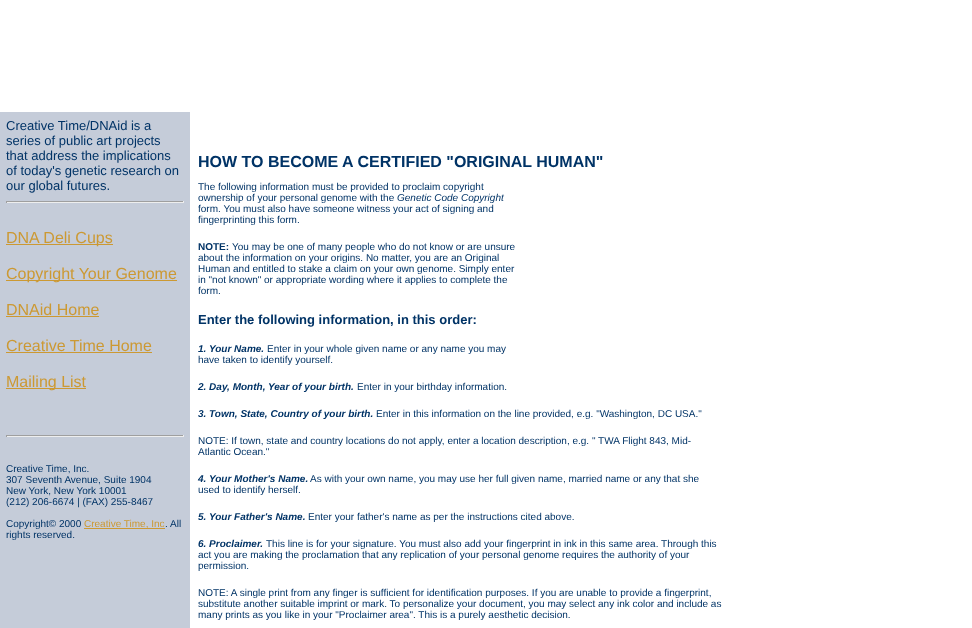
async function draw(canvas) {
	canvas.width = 972;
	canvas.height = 628;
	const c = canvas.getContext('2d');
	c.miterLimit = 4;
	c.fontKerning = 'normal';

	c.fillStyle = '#fff';
	c.fillRect(0, 0, 972, 628);
	c.fillStyle = '#c5ccd9';
	c.fillRect(0, 112, 190, 516);
	c.font = '13px Liberation Sans';
	c.fillStyle = '#036';
	for (const [text, x, y] of [
		['Creative Time/DNAid is a', 6, 130],
		['series of public art projects', 6, 145],
		['that address the implications', 6, 160],
		['of today\'s genetic research on', 6, 175],
		['our global futures.', 6, 190],
	]) {
		c.fillText(text, x, y);
	}
	for (const [x, y, w, h, color] of [
		[6, 201, 178, 1, '#9f9f9f'],
		[183, 201, 1, 2, '#eee'],
		[6, 202, 178, 1, '#eee'],
		[6, 201, 1, 2, '#9f9f9f'],
		[6, 244, 107, 1, '#c93'],
	]) {
		c.fillStyle = color;
		c.fillRect(x, y, w, h);
	}
	c.font = '16px Liberation Sans';
	c.fillText('DNA Deli Cups', 6, 243);
	c.fillRect(6, 280, 171, 1);
	c.fillText('Copyright Your Genome', 6, 279);
	c.fillText('DNAid Home', 6, 315);
	c.fillRect(6, 316, 93, 1);
	c.fillText('Creative Time Home', 6, 351);
	c.fillRect(6, 352, 146, 1);
	c.fillRect(6, 388, 80, 1);
	c.fillText('Mailing List', 6, 387);
	for (const [x, y, w, h, color] of [
		[6, 435, 178, 1, '#9f9f9f'],
		[183, 435, 1, 2, '#eee'],
		[6, 436, 178, 1, '#eee'],
		[6, 435, 1, 2, '#9f9f9f'],
	]) {
		c.fillStyle = color;
		c.fillRect(x, y, w, h);
	}
	c.font = '10px Liberation Sans';
	c.fillStyle = '#036';
	for (const [text, x, y] of [
		['Creative Time, Inc.', 6, 472],
		['307 Seventh Avenue, Suite 1904', 6, 483],
		['New York, New York 10001', 6, 494],
		['(212) 206-6674 | (FAX) 255-8467', 6, 505],
		['Copyright© 2000', 6, 527],
	]) {
		c.fillText(text, x, y);
	}
	c.fillStyle = '#c93';
	c.fillRect(84, 528, 81, 1);
	c.fillText('Creative Time, Inc', 84, 527);
	c.fillStyle = '#036';
	c.fillText('. All', 165, 527);
	c.fillText('rights reserved.', 6, 538);
	c.font = 'bold 16px Liberation Sans';
	c.fillText('HOW TO BECOME A CERTIFIED "ORIGINAL HUMAN"', 198, 167);
	c.font = '10px Liberation Sans';
	c.fillText('The following information must be provided to proclaim copyright', 198, 190);
	c.fillText('ownership of your personal genome with the', 198, 201);
	c.font = 'italic 10px Liberation Sans';
	c.fillText('Genetic Code Copyright', 397, 201);
	c.font = '10px Liberation Sans';
	c.fillText('form. You must also have someone witness your act of signing and', 198, 212);
	c.fillText('fingerprinting this form.', 198, 223);
	c.font = 'bold 10px Liberation Sans';
	c.fillText('NOTE:', 198, 250);
	c.font = '10px Liberation Sans';
	for (const [text, x, y] of [
		['You may be one of many people who do not know or are unsure', 232, 250],
		['about the information on your origins. No matter, you are an Original', 198, 261],
		['Human and entitled to stake a claim on your own genome. Simply enter', 198, 272],
		['in "not known" or appropriate wording where it applies to complete the', 198, 283],
		['form.', 198, 294],
	]) {
		c.fillText(text, x, y);
	}
	c.font = 'bold 13px Liberation Sans';
	c.fillText('Enter the following information, in this order:', 198, 324);
	c.font = 'italic bold 10px Liberation Sans';
	c.fillText('1. Your Name.', 198, 352);
	c.font = '10px Liberation Sans';
	c.fillText('Enter in your whole given name or any name you may', 267, 352);
	c.fillText('have taken to identify yourself.', 198, 363);
	c.font = 'italic bold 10px Liberation Sans';
	c.fillText('2. Day, Month, Year of your birth.', 198, 390);
	c.font = '10px Liberation Sans';
	c.fillText('Enter in your birthday information.', 357, 390);
	c.font = 'italic bold 10px Liberation Sans';
	c.fillText('3. Town, State, Country of your birth.', 198, 417);
	c.font = '10px Liberation Sans';
	for (const [text, x, y] of [
		['Enter in this information on the line provided, e.g. "Washington, DC USA."', 376, 417],
		['NOTE: If town, state and country locations do not apply, enter a location description, e.g. " TWA Flight 843, Mid-', 198, 444],
		['Atlantic Ocean."', 198, 455],
	]) {
		c.fillText(text, x, y);
	}
	c.font = 'italic bold 10px Liberation Sans';
	c.fillText('4. Your Mother\'s Name.', 198, 482);
	c.font = '10px Liberation Sans';
	c.fillText('As with your own name, you may use her full given name, married name or any that she', 310, 482);
	c.fillText('used to identify herself.', 198, 493);
	c.font = 'italic bold 10px Liberation Sans';
	c.fillText('5. Your Father\'s Name.', 198, 520);
	c.font = '10px Liberation Sans';
	c.fillText('Enter your father\'s name as per the instructions cited above.', 308, 520);
	c.font = 'italic bold 10px Liberation Sans';
	c.fillText('6. Proclaimer.', 198, 547);
	c.font = '10px Liberation Sans';
	for (const [text, x, y] of [
		['This line is for your signature. You must also add your fingerprint in ink in this same area. Through this', 266, 547],
		['act you are making the proclamation that any replication of your personal genome requires the authority of your', 198, 558],
		['permission.', 198, 569],
		['NOTE: A single print from any finger is sufficient for identification purposes. If you are unable to provide a fingerprint,', 198, 596],
		['substitute another suitable imprint or mark. To personalize your document, you may select any ink color and include as', 198, 607],
		['many prints as you like in your "Proclaimer area". This is a purely aesthetic decision.', 198, 618],
	]) {
		c.fillText(text, x, y);
	}
}

draw(document.querySelector('canvas'));
